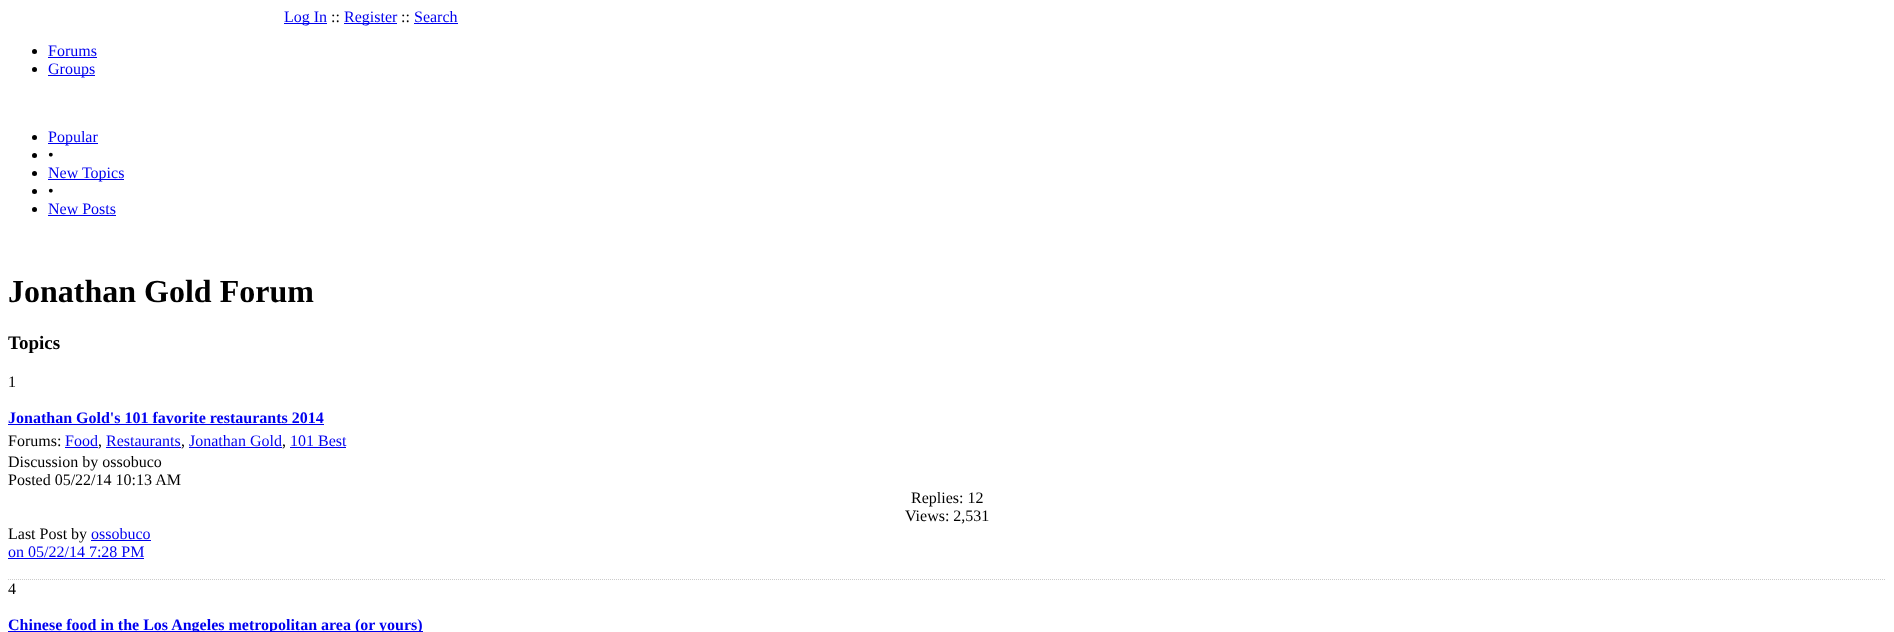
async function draw(canvas) {
	canvas.width = 1894;
	canvas.height = 632;
	const c = canvas.getContext('2d');
	c.miterLimit = 4;
	c.fontKerning = 'normal';

	c.fillStyle = '#fff';
	c.fillRect(0, 0, 1894, 632);
	c.fillStyle = '#00e';
	c.fillRect(284, 23, 43, 1);
	c.font = '16px Liberation Serif';
	c.fillText('Log In', 284, 22);
	c.fillStyle = '#000';
	c.fillText('::', 331, 22);
	c.fillStyle = '#00e';
	c.fillRect(344, 23, 53, 1);
	c.fillText('Register', 344, 22);
	c.fillStyle = '#000';
	c.fillText('::', 401, 22);
	c.fillStyle = '#00e';
	c.fillText('Search', 414, 22);
	c.fillRect(414, 23, 44, 1);
	c.fillStyle = '#000';
	c.beginPath();
	c.arc(34.5, 51.5, 2.5, 0, 2 * Math.PI);
	c.fill();
	c.fillStyle = '#00e';
	c.fillText('Forums', 48, 56);
	c.fillRect(48, 57, 49, 1);
	c.fillStyle = '#000';
	c.beginPath();
	c.arc(34.5, 69.5, 2.5, 0, 2 * Math.PI);
	c.fill();
	c.fillStyle = '#00e';
	c.fillRect(48, 75, 47, 1);
	c.fillText('Groups', 48, 74);
	c.fillStyle = '#000';
	c.beginPath();
	c.arc(34.5, 137.5, 2.5, 0, 2 * Math.PI);
	c.fill();
	c.fillStyle = '#00e';
	c.fillRect(48, 143, 50, 1);
	c.fillText('Popular', 48, 142);
	c.fillStyle = '#000';
	c.beginPath();
	c.arc(34.5, 155.5, 2.5, 0, 2 * Math.PI);
	c.fill();
	c.fillText('•', 48, 160);
	c.beginPath();
	c.arc(34.5, 173.5, 2.5, 0, 2 * Math.PI);
	c.fill();
	c.fillStyle = '#00e';
	c.fillRect(48, 179, 76, 1);
	c.fillText('New Topics', 48, 178);
	c.fillStyle = '#000';
	c.beginPath();
	c.arc(34.5, 191.5, 2.5, 0, 2 * Math.PI);
	c.fill();
	c.fillText('•', 48, 196);
	c.beginPath();
	c.arc(34.5, 209.5, 2.5, 0, 2 * Math.PI);
	c.fill();
	c.fillStyle = '#00e';
	c.fillText('New Posts', 48, 214);
	c.fillRect(48, 215, 68, 1);
	c.font = 'bold 32px Liberation Serif';
	c.fillStyle = '#000';
	c.fillText('Jonathan Gold Forum', 8, 302);
	c.font = 'bold 19px Liberation Serif';
	c.fillText('Topics', 8, 349);
	c.beginPath();
	c.moveTo(8, 579.5);
	c.lineTo(1886, 579.5);
	c.strokeStyle = '#ccc';
	c.setLineDash([1, 1]);
	c.stroke();
	c.font = '16px Liberation Serif';
	c.fillText('1', 8, 387);
	c.font = 'bold 16px Liberation Serif';
	c.fillStyle = '#00e';
	c.fillText('Jonathan Gold\'s 101 favorite restaurants 2014', 8, 423);
	c.fillRect(8, 424, 316, 1);
	c.font = '16px Liberation Serif';
	c.fillStyle = '#000';
	c.fillText('Forums:', 8, 446);
	c.fillStyle = '#00e';
	c.fillText('Food', 65, 446);
	c.fillRect(65, 447, 33, 1);
	c.fillStyle = '#000';
	c.fillText(',', 98, 446);
	c.fillStyle = '#00e';
	c.fillText('Restaurants', 106, 446);
	c.fillRect(106, 447, 75, 1);
	c.fillStyle = '#000';
	c.fillText(',', 181, 446);
	c.fillStyle = '#00e';
	c.fillText('Jonathan Gold', 189, 446);
	c.fillRect(189, 447, 93, 1);
	c.fillStyle = '#000';
	c.fillText(',', 282, 446);
	c.fillStyle = '#00e';
	c.fillText('101 Best', 290, 446);
	c.fillRect(290, 447, 56, 1);
	c.fillStyle = '#000';
	for (const [text, x, y] of [
		['Discussion by ossobuco', 8, 467],
		['Posted 05/22/14 10:13 AM', 8, 485],
		['Replies: 12', 911, 503],
		['Views: 2,531', 905, 521],
		['Last Post by', 8, 539],
	]) {
		c.fillText(text, x, y);
	}
	c.fillStyle = '#00e';
	c.fillText('ossobuco', 91, 539);
	c.fillRect(91, 540, 60, 1);
	c.fillText('on 05/22/14 7:28 PM', 8, 557);
	c.fillRect(8, 558, 136, 1);
	c.fillStyle = '#000';
	c.fillText('4', 8, 594);
	c.fillStyle = '#00e';
	c.fillRect(8, 631, 415, 1);
	c.font = 'bold 16px Liberation Serif';
	c.fillText('Chinese food in the Los Angeles metropolitan area (or yours)', 8, 630);
}

draw(document.querySelector('canvas'));
